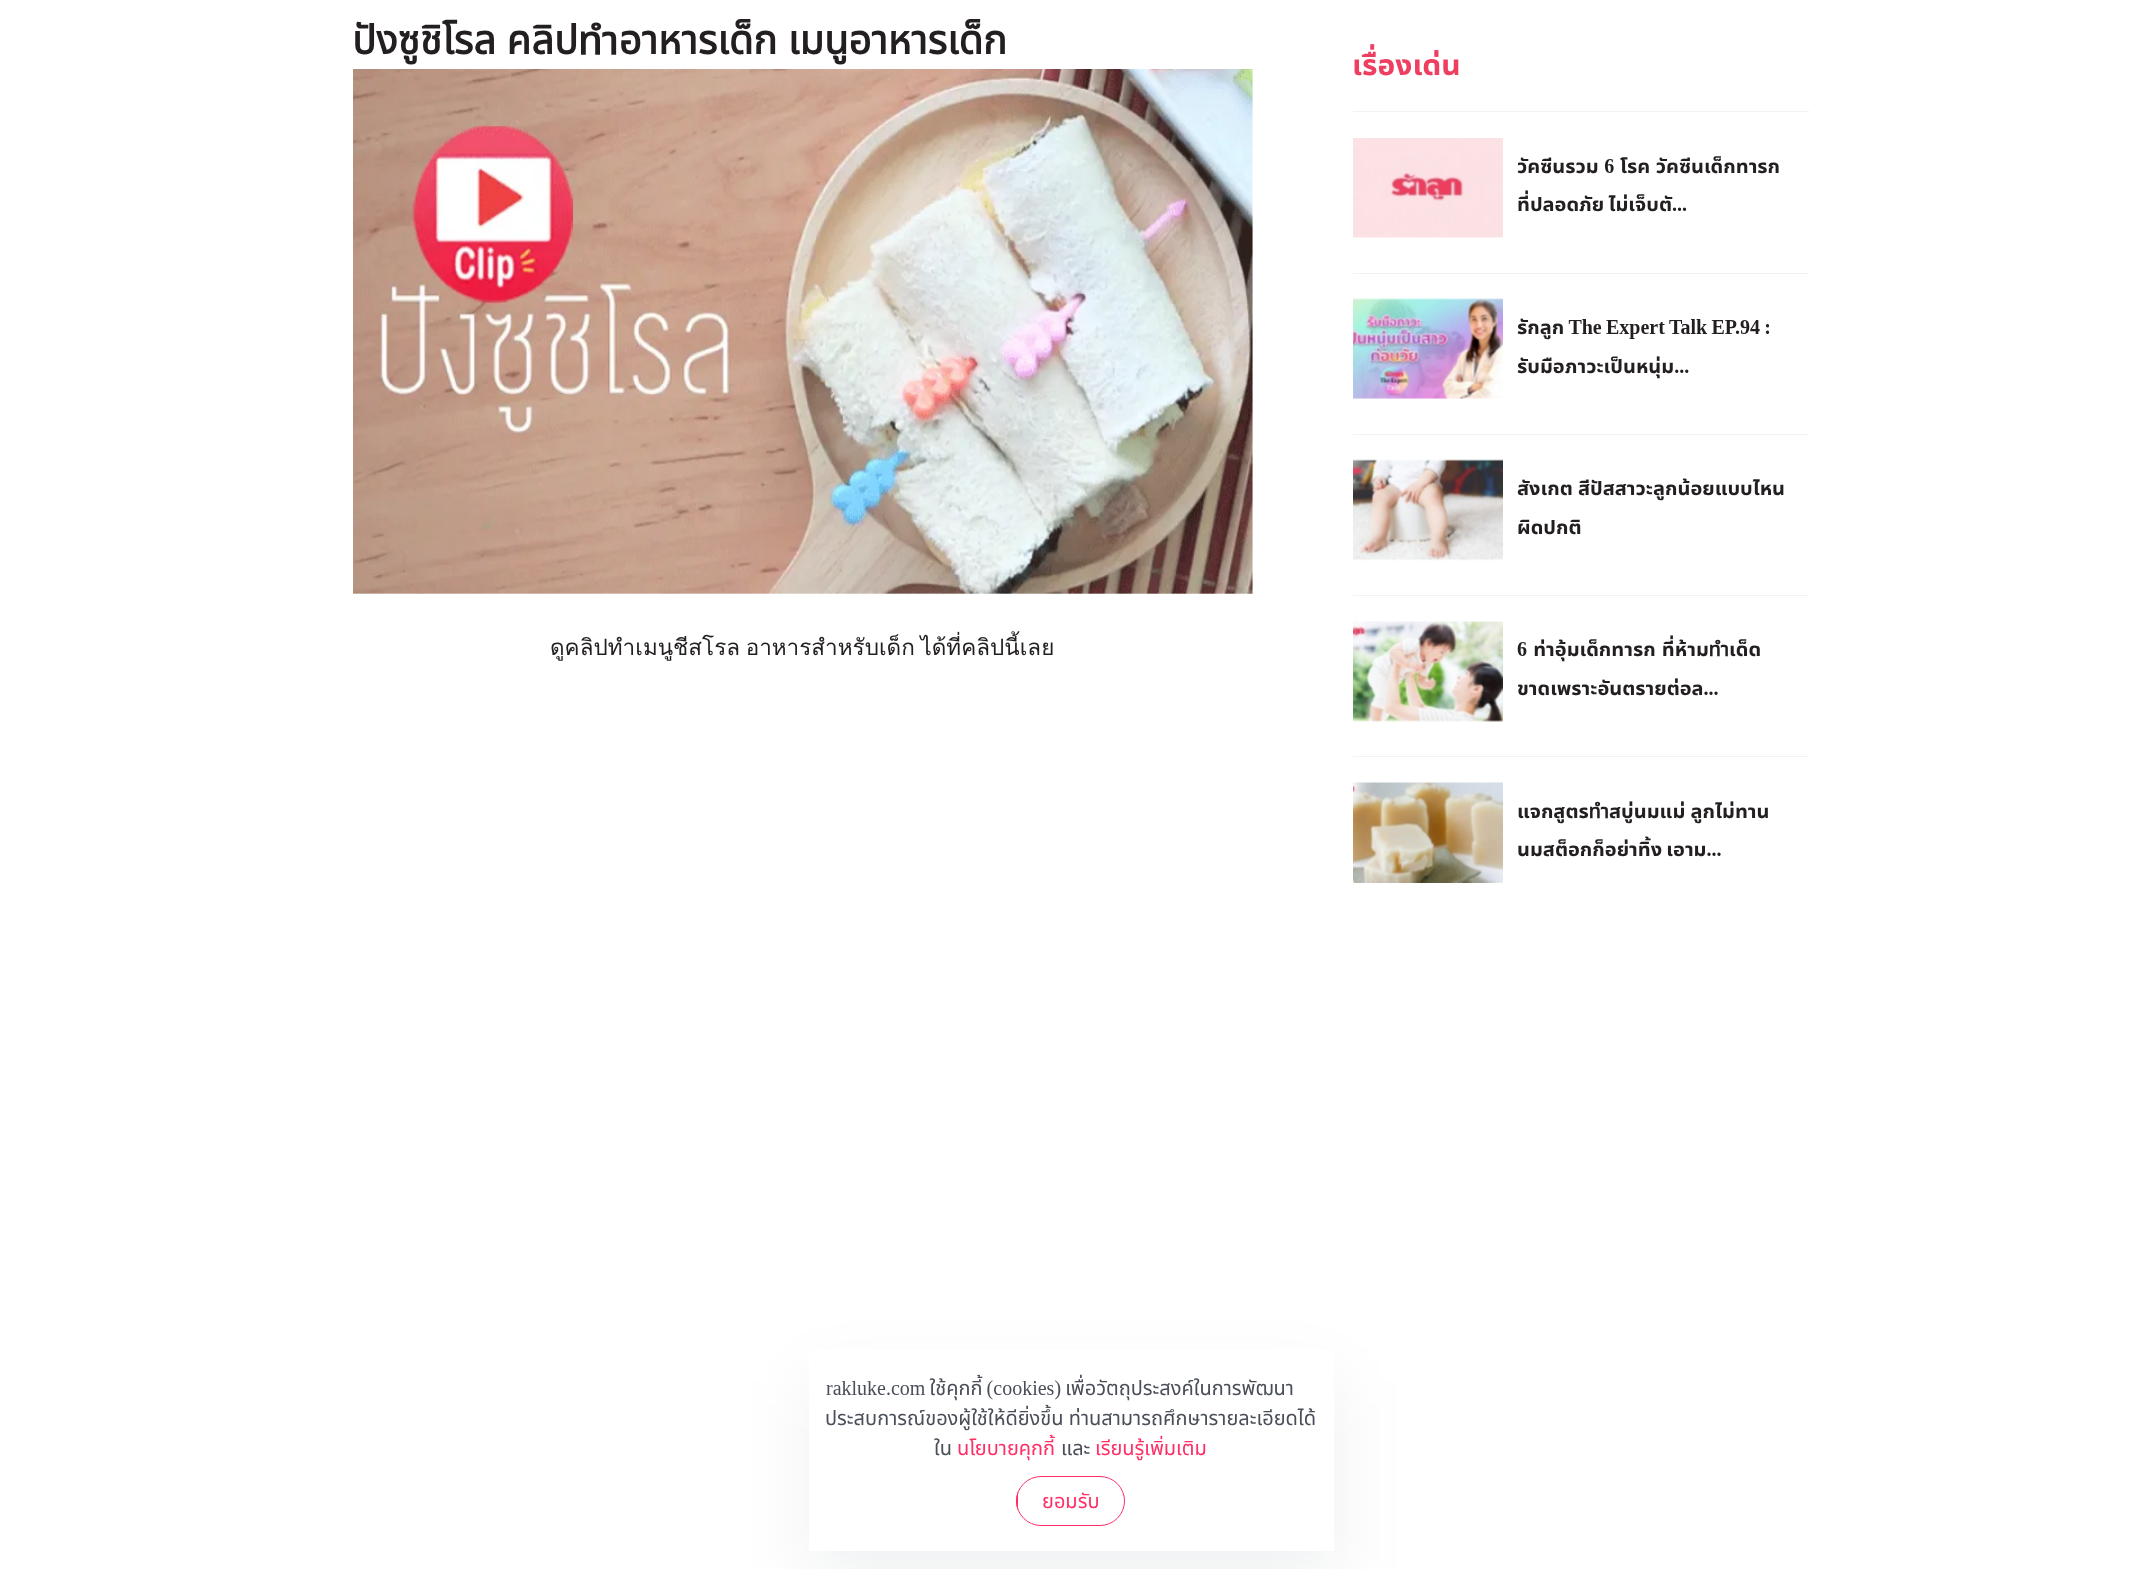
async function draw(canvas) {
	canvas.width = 2141;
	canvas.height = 1569;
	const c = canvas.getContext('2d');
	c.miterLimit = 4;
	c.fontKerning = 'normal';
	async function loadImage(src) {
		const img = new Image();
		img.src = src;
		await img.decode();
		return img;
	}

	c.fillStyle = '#fff';
	c.fillRect(0, 0, 2141, 1569);
	c.save();
	c.beginPath();
	c.rect(353, 0, 900, 69);
	c.clip();
	c.font = 'bold 40px Noto Sans Thai';
	c.fillStyle = '#231f20';
	c.fillText('ปังซูชิโรล คลิปทำอาหารเด็ก เมนูอาหารเด็ก', 352, 54);
	c.restore();
	c.save();
	c.beginPath();
	c.rect(1353, 0, 456, 983);
	c.clip();
	c.font = 'bold 30px Noto Sans Thai UI';
	c.fillStyle = '#ee3f60';
	c.fillText('เรื่องเด่น', 1352, 75);
	c.restore();
	c.fillStyle = '#f2f2f2';
	c.fillRect(1353, 111, 456, 1);
	c.drawImage(await loadImage('img1.png'), 1353, 138, 150, 100);
	c.wordSpacing = '0.5px';
	c.font = 'bold 20px Noto Sans Thai UI';
	c.fillStyle = '#231f20';
	c.fillText('วัคซีนรวม 6 โรค วัคซีนเด็กทารก', 1517, 173);
	c.wordSpacing = '-1px';
	c.fillText('ที่ปลอดภัย ไม่เจ็บตั...', 1517, 211);
	c.fillStyle = '#f2f2f2';
	c.fillRect(1353, 273, 456, 1);
	c.drawImage(await loadImage('img2.png'), 1353, 298, 150, 101);
	c.fillStyle = '#231f20';
	c.fillText('รักลูก The Expert Talk EP.94 :', 1517, 334);
	c.wordSpacing = '0px';
	c.fillText('รับมือภาวะเป็นหนุ่ม...', 1517, 373);
	c.fillStyle = '#f2f2f2';
	c.fillRect(1353, 434, 456, 1);
	c.drawImage(await loadImage('img3.png'), 1353, 459, 150, 102);
	c.fillStyle = '#231f20';
	c.fillText('สังเกต สีปัสสาวะลูกน้อยแบบไหน', 1517, 495);
	c.fillText('ผิดปกติ', 1517, 534);
	c.fillStyle = '#f2f2f2';
	c.fillRect(1353, 595, 456, 1);
	c.drawImage(await loadImage('img4.png'), 1353, 621, 150, 101);
	c.wordSpacing = '1px';
	c.fillStyle = '#231f20';
	c.fillText('6 ท่าอุ้มเด็กทารก ที่ห้ามทำเด็ด', 1517, 656);
	c.wordSpacing = '0px';
	c.fillText('ขาดเพราะอันตรายต่อล...', 1517, 695);
	c.fillStyle = '#f2f2f2';
	c.fillRect(1353, 756, 456, 1);
	c.drawImage(await loadImage('img5.png'), 1353, 782, 150, 101);
	c.fillStyle = '#231f20';
	c.fillText('แจกสูตรทำสบู่นมแม่ ลูกไม่ทาน', 1517, 818);
	c.wordSpacing = '-1px';
	c.fillText('นมสต็อกก็อย่าทิ้ง เอาม...', 1517, 856);
	c.drawImage(await loadImage('img6.png'), 353, 69, 900, 525);
	c.wordSpacing = '-2px';
	c.font = '22.5px Loma';
	c.fillText('ดูคลิปทำเมนูชีสโรล อาหารสำหรับเด็ก ได้ที่คลิปนี้เลย', 550, 655);
	c.fillStyle = '#060d2a0f';
	c.filter = 'blur(35px)';
	c.beginPath();
	c.rect(811, 1381, 525, 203);
	c.fill();
	c.filter = 'none';
	c.fillStyle = '#fff';
	c.fillRect(809, 1349, 525, 202);
	c.wordSpacing = '-1px';
	c.font = '20px Noto Sans Thai';
	c.fillStyle = '#4a4e58';
	c.fillText('rakluke.com ใช้คุกกี้ (cookies) เพื่อวัตถุประสงค์ในการพัฒนา', 826, 1395);
	c.wordSpacing = '0px';
	c.fillText('ประสบการณ์ของผู้ใช้ให้ดียิ่งขึ้น ท่านสามารถศึกษารายละเอียดได้', 825, 1425);
	c.fillText('ใน', 934, 1455);
	c.fillStyle = '#ff2e64';
	c.fillText('นโยบายคุกกี้', 957, 1455);
	c.fillStyle = '#4a4e58';
	c.fillText('และ', 1061, 1455);
	c.fillStyle = '#ff2e64';
	c.fillText('เรียนรู้เพิ่มเติม', 1095, 1455);
	c.save();
	c.beginPath();
	c.roundRect(1016, 1476, 109, 50, 25);
	c.clip();
	c.fillRect(1016, 1491, 2, 20);
	c.restore();
	c.beginPath();
	c.roundRect(1016.5, 1476.5, 108, 49, 24.5);
	c.strokeStyle = '#ff2e64';
	c.stroke();
	c.fillText('ยอมรับ', 1042, 1508);
}

draw(document.querySelector('canvas'));
